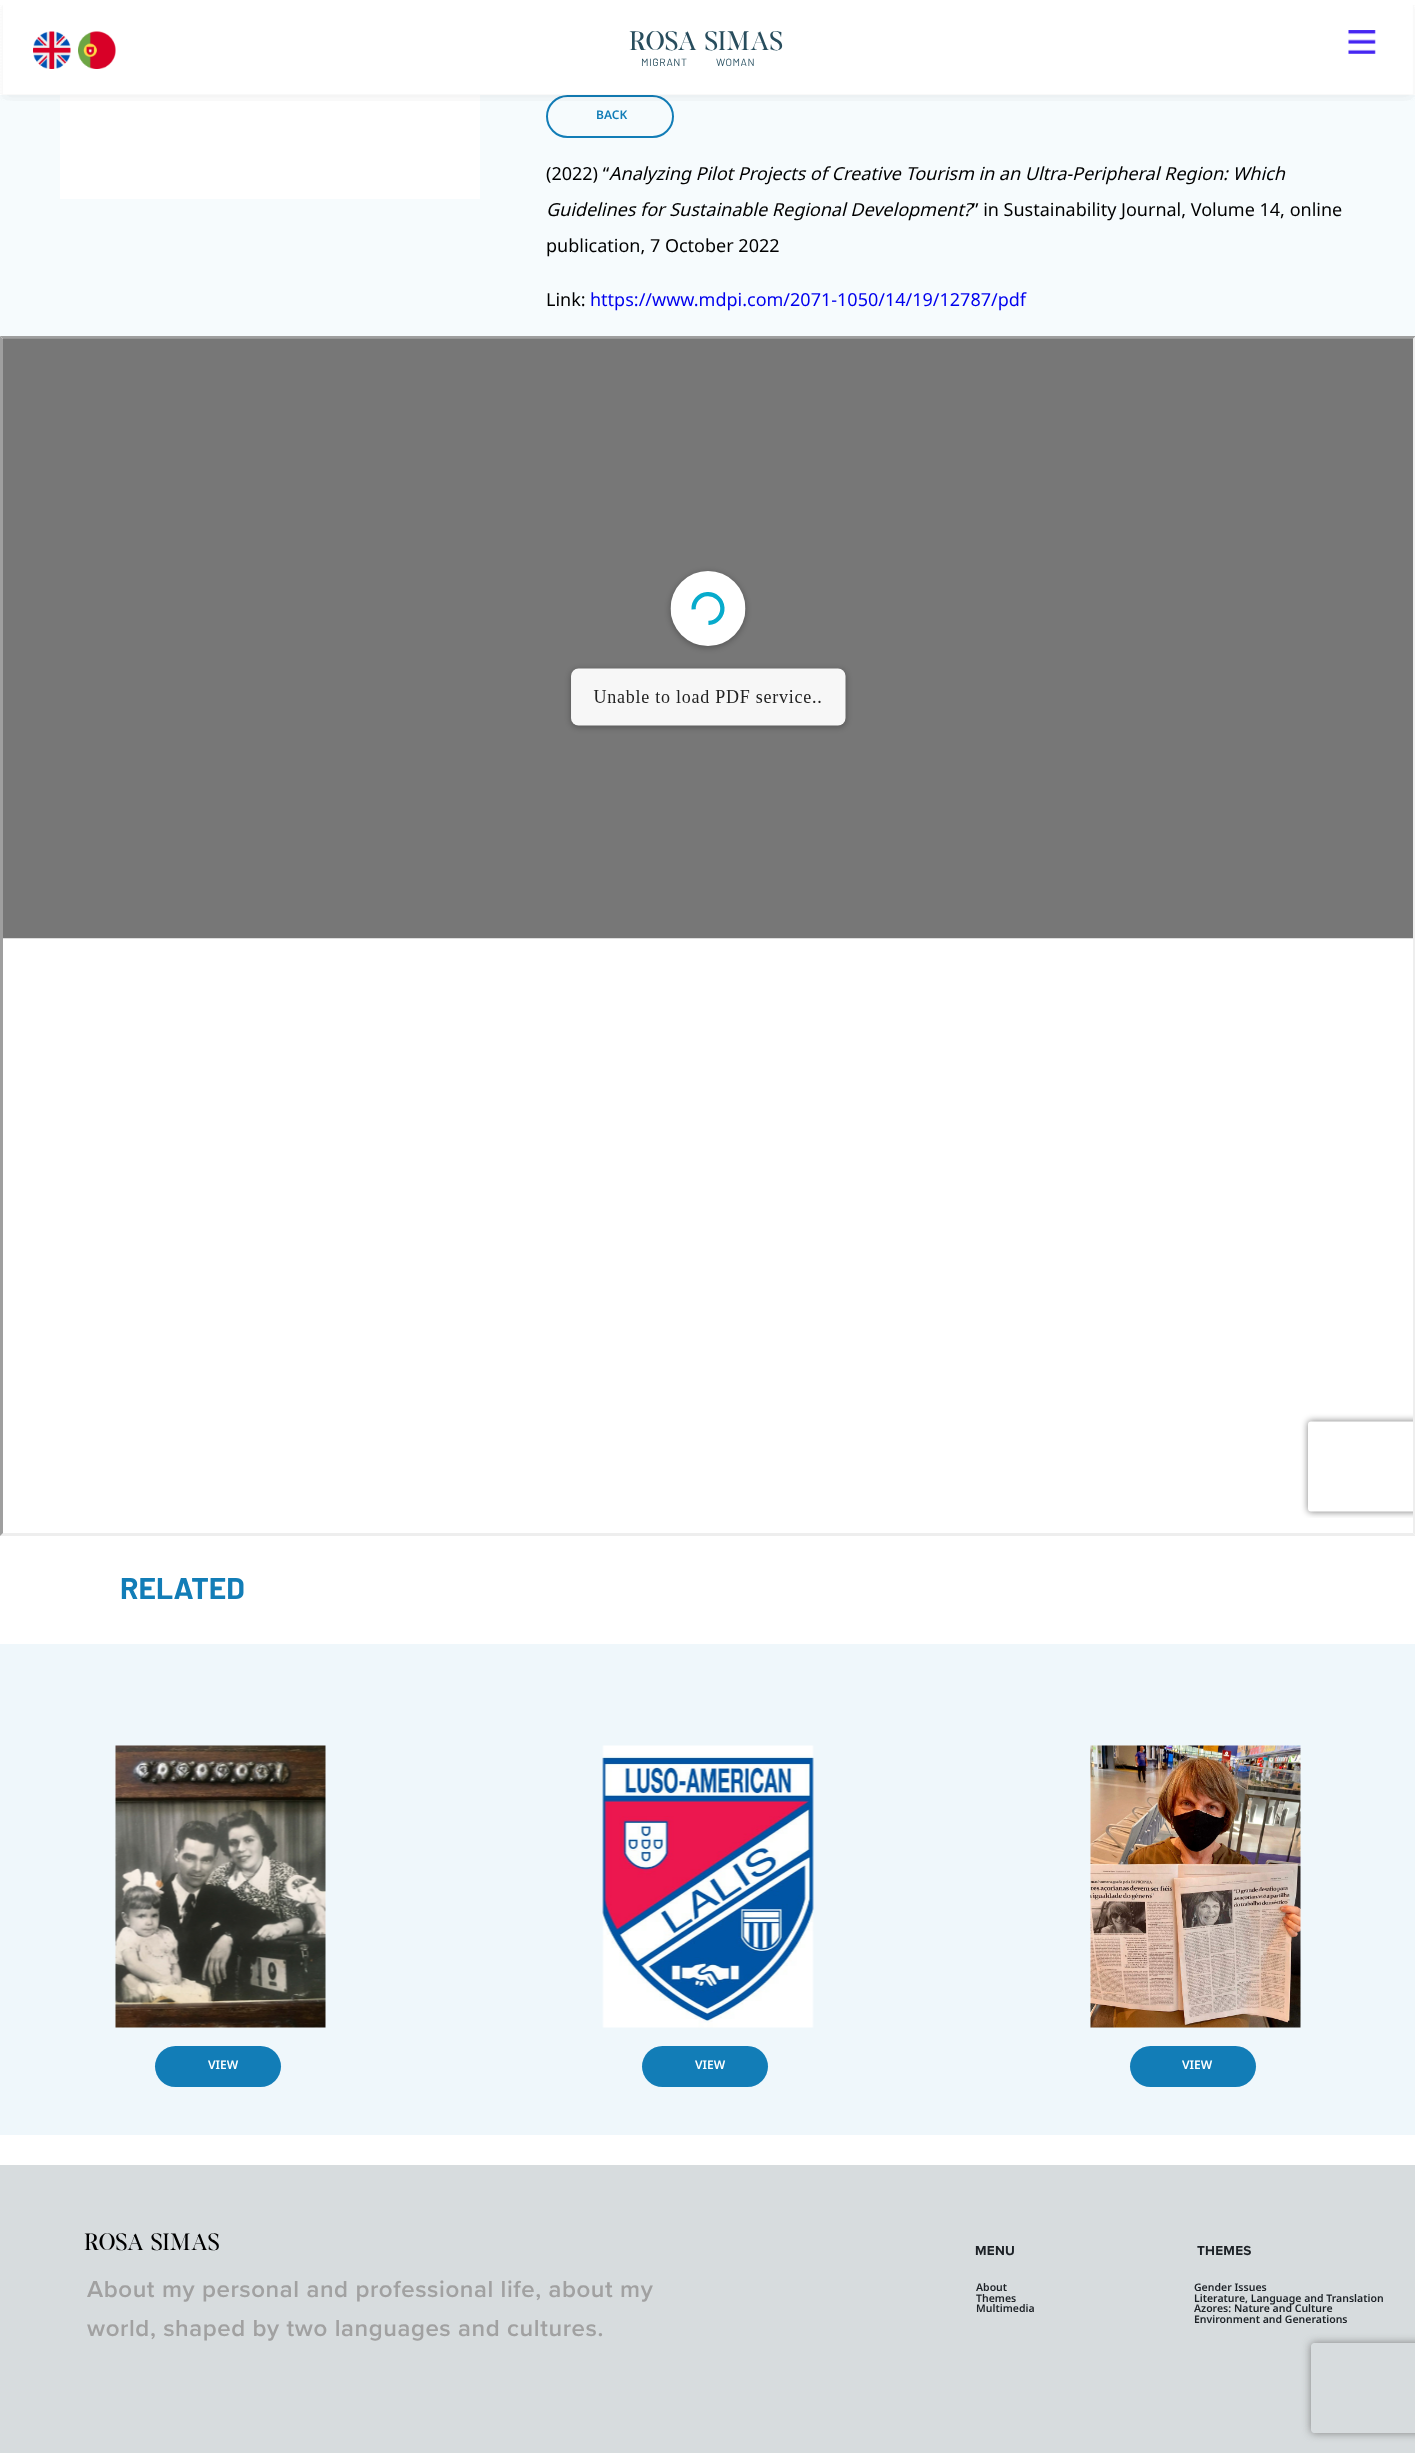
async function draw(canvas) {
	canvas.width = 1415;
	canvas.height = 2453;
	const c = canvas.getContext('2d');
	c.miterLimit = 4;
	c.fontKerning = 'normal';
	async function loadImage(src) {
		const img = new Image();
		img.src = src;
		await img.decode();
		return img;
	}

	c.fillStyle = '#fff';
	c.fillRect(0, 0, 1415, 2453);
	c.fillStyle = '#f6fbfd';
	c.fillRect(0, 95, 1415, 241);
	c.drawImage(await loadImage('img5.png'), 60, 95, 420, 104);
	c.beginPath();
	c.roundRect(547, 96, 126, 41, 20.5);
	c.strokeStyle = '#127db7';
	c.lineWidth = 2;
	c.stroke();
	c.drawImage(await loadImage('img1.png'), 0, 5, 1415, 96);
	c.drawImage(await loadImage('img2.png'), 33, 31, 38, 38);
	c.drawImage(await loadImage('img3.png'), 78, 31, 38, 38);
	c.font = '25.5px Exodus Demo';
	c.fillStyle = '#284d5d';
	c.fillText('ROSA SIMAS', 629, 50);
	c.letterSpacing = '0.5px';
	c.font = '10.5px Barlow';
	c.fillText('MIGRANT', 641, 66);
	c.fillStyle = '#2c5364';
	c.fillText('WOMAN', 716, 66);
	c.drawImage(await loadImage('img4.png'), 1348, 30, 28, 24);
	c.letterSpacing = '0px';
	c.font = '600 12px Noto Sans';
	c.fillStyle = '#127db7';
	c.fillText('BACK', 596, 119);
	c.font = '18px Noto Sans';
	c.fillStyle = '#000';
	c.fillText('(2022) “', 546, 180);
	c.font = 'italic 18px Noto Sans';
	c.fillText('Analyzing Pilot Projects of Creative Tourism in an Ultra-Peripheral Region: Which', 609, 180);
	c.fillText('Guidelines for Sustainable Regional Development?', 546, 216);
	c.font = '18px Noto Sans';
	for (const [text, x, y] of [
		['” in Sustainability Journal, Volume 14, online', 972, 216],
		['publication, 7 October 2022', 546, 252],
		['Link:', 546, 306],
	]) {
		c.fillText(text, x, y);
	}
	c.fillStyle = '#00e';
	c.fillText('https://www.mdpi.com/2071-1050/14/19/12787/pdf', 590, 306);
	c.fillStyle = '#9f9f9f';
	c.beginPath();
	c.moveTo(0, 336);
	c.lineTo(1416, 336);
	c.lineTo(1413, 339);
	c.lineTo(3, 339);
	c.closePath();
	c.fill();
	c.fillStyle = '#eee';
	c.beginPath();
	c.moveTo(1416, 336);
	c.lineTo(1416, 1536);
	c.lineTo(1413, 1533);
	c.lineTo(1413, 339);
	c.closePath();
	c.fill();
	c.beginPath();
	c.moveTo(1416, 1536);
	c.lineTo(0, 1536);
	c.lineTo(3, 1533);
	c.lineTo(1413, 1533);
	c.closePath();
	c.fill();
	c.fillStyle = '#9f9f9f';
	c.beginPath();
	c.moveTo(0, 1536);
	c.lineTo(0, 336);
	c.lineTo(3, 339);
	c.lineTo(3, 1533);
	c.closePath();
	c.fill();
	c.drawImage(await loadImage('img6.png'), 3, 338, 1410, 1180);
	c.font = 'bold 30px Barlow';
	c.fillStyle = '#127db7';
	c.fillText('RELATED', 120, 1599);
	c.fillStyle = '#eff7fb';
	c.fillRect(0, 1644, 1415, 491);
	c.drawImage(await loadImage('img7.png'), 115, 1745, 211, 283);
	c.fillStyle = '#127db7';
	c.beginPath();
	c.roundRect(155, 2046, 126, 41, 20.5);
	c.fill();
	c.font = '600 12px Noto Sans';
	c.fillStyle = '#fff';
	c.fillText('VIEW', 208, 2069);
	c.drawImage(await loadImage('img8.png'), 602, 1745, 212, 283);
	c.fillStyle = '#127db7';
	c.beginPath();
	c.roundRect(642, 2046, 126, 41, 20.5);
	c.fill();
	c.fillStyle = '#fff';
	c.fillText('VIEW', 695, 2069);
	c.drawImage(await loadImage('img9.png'), 1090, 1745, 211, 283);
	c.fillStyle = '#127db7';
	c.beginPath();
	c.roundRect(1130, 2046, 126, 41, 20.5);
	c.fill();
	c.fillStyle = '#fff';
	c.fillText('VIEW', 1182, 2069);
	c.fillStyle = '#d7dcde';
	c.fillRect(0, 2165, 1415, 288);
	c.font = '22.5px Exodus Demo';
	c.fillStyle = '#000';
	c.fillText('ROSA SIMAS', 84, 2250);
	c.letterSpacing = '0.25px';
	c.font = 'bold 13.5px Proxima Nova';
	c.fillStyle = '#1c2126';
	c.fillText('MENU', 975, 2255);
	c.fillText('THEMES', 1197, 2255);
	c.letterSpacing = '0.6px';
	c.font = '600 24px Proxima Nova';
	c.fillStyle = '#a1a1a1';
	c.fillText('About my personal and professional life, about my', 87, 2297);
	c.fillText('world, shaped by two languages and cultures.', 87, 2336);
	c.letterSpacing = '0px';
	c.font = '600 10.5px Noto Sans';
	c.fillStyle = '#1c2126';
	for (const [text, x, y] of [
		['About', 976, 2291],
		['Themes', 976, 2302],
		['Multimedia', 976, 2312],
		['Gender Issues', 1194, 2291],
		['Literature, Language and Translation', 1194, 2302],
		['Azores: Nature and Culture', 1194, 2312],
		['Environment and Generations', 1194, 2323],
	]) {
		c.fillText(text, x, y);
	}
	c.save();
	c.beginPath();
	c.moveTo(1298, 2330);
	c.lineTo(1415, 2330);
	c.lineTo(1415, 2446);
	c.lineTo(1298, 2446);
	c.closePath();
	c.moveTo(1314, 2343);
	c.lineTo(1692, 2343);
	c.bezierCurveTo(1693.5, 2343, 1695, 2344.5, 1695, 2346);
	c.lineTo(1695, 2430);
	c.bezierCurveTo(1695, 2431.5, 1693.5, 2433, 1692, 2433);
	c.lineTo(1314, 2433);
	c.bezierCurveTo(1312.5, 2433, 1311, 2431.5, 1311, 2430);
	c.lineTo(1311, 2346);
	c.bezierCurveTo(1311, 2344.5, 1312.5, 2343, 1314, 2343);
	c.closePath();
	c.clip('evenodd');
	c.fillStyle = '#808080';
	c.filter = 'blur(4px)';
	c.beginPath();
	c.roundRect(1311, 2343, 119, 90, 3);
	c.fill();
	c.filter = 'none';
	c.restore();
}

draw(document.querySelector('canvas'));
